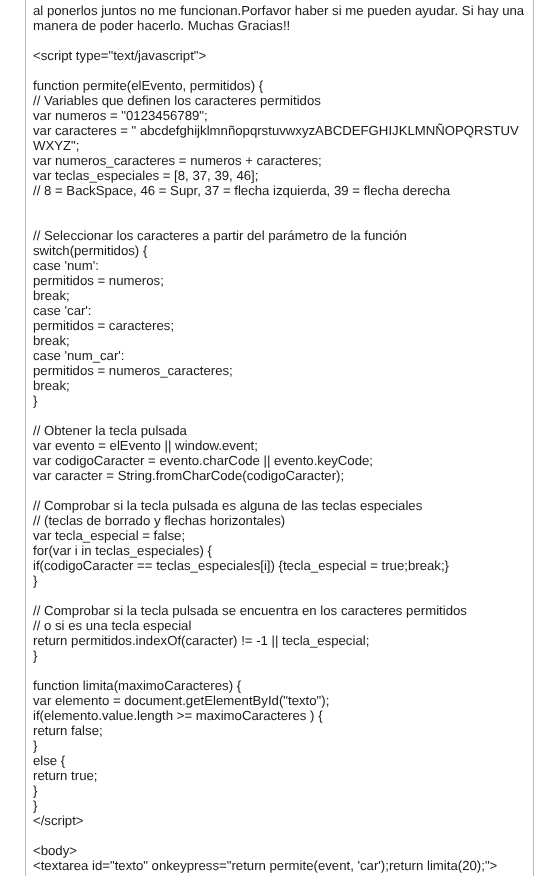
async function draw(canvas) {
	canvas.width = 559;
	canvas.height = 876;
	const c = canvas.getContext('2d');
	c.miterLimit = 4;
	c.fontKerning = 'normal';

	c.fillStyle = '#fff';
	c.fillRect(0, 0, 559, 876);
	c.strokeStyle = '#b9b9b9';
	c.strokeRect(25.5, -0.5, 508, 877);
	c.font = '13.2px Liberation Sans';
	c.fillStyle = '#1a1a1a';
	for (const [text, x, y] of [
		['al ponerlos juntos no me funcionan.Porfavor haber si me pueden ayudar. Si hay una', 33, 15],
		['manera de poder hacerlo. Muchas Gracias!!', 33, 30],
		['<script type="text/javascript">', 33, 60],
		['function permite(elEvento, permitidos) {', 33, 90],
		['// Variables que definen los caracteres permitidos', 33, 105],
		['var numeros = "0123456789";', 33, 120],
		['var caracteres = " abcdefghijklmnñopqrstuvwxyzABCDEFGHIJKLMNÑOPQRSTUV', 33, 135],
		['WXYZ";', 33, 150],
		['var numeros_caracteres = numeros + caracteres;', 33, 165],
		['var teclas_especiales = [8, 37, 39, 46];', 33, 180],
		['// 8 = BackSpace, 46 = Supr, 37 = flecha izquierda, 39 = flecha derecha', 33, 195],
		['// Seleccionar los caracteres a partir del parámetro de la función', 33, 240],
		['switch(permitidos) {', 33, 255],
		['case \'num\':', 33, 270],
		['permitidos = numeros;', 33, 285],
		['break;', 33, 300],
		['case \'car\':', 33, 315],
		['permitidos = caracteres;', 33, 330],
		['break;', 33, 345],
		['case \'num_car\':', 33, 360],
		['permitidos = numeros_caracteres;', 33, 375],
		['break;', 33, 390],
		['}', 33, 405],
		['// Obtener la tecla pulsada', 33, 435],
		['var evento = elEvento || window.event;', 33, 450],
		['var codigoCaracter = evento.charCode || evento.keyCode;', 33, 465],
		['var caracter = String.fromCharCode(codigoCaracter);', 33, 480],
		['// Comprobar si la tecla pulsada es alguna de las teclas especiales', 33, 510],
		['// (teclas de borrado y flechas horizontales)', 33, 525],
		['var tecla_especial = false;', 33, 540],
		['for(var i in teclas_especiales) {', 33, 555],
		['if(codigoCaracter == teclas_especiales[i]) {tecla_especial = true;break;}', 33, 570],
		['}', 33, 585],
		['// Comprobar si la tecla pulsada se encuentra en los caracteres permitidos', 33, 615],
		['// o si es una tecla especial', 33, 630],
		['return permitidos.indexOf(caracter) != -1 || tecla_especial;', 33, 645],
		['}', 33, 660],
		['function limita(maximoCaracteres) {', 33, 690],
		['var elemento = document.getElementById("texto");', 33, 705],
		['if(elemento.value.length >= maximoCaracteres ) {', 33, 720],
		['return false;', 33, 735],
		['}', 33, 750],
		['else {', 33, 765],
		['return true;', 33, 780],
		['}', 33, 795],
		['}', 33, 810],
		['<\/script>', 33, 825],
		['<body>', 33, 855],
		['<textarea id="texto" onkeypress="return permite(event, \'car\');return limita(20);">', 33, 870],
	]) {
		c.fillText(text, x, y);
	}
}

draw(document.querySelector('canvas'));
